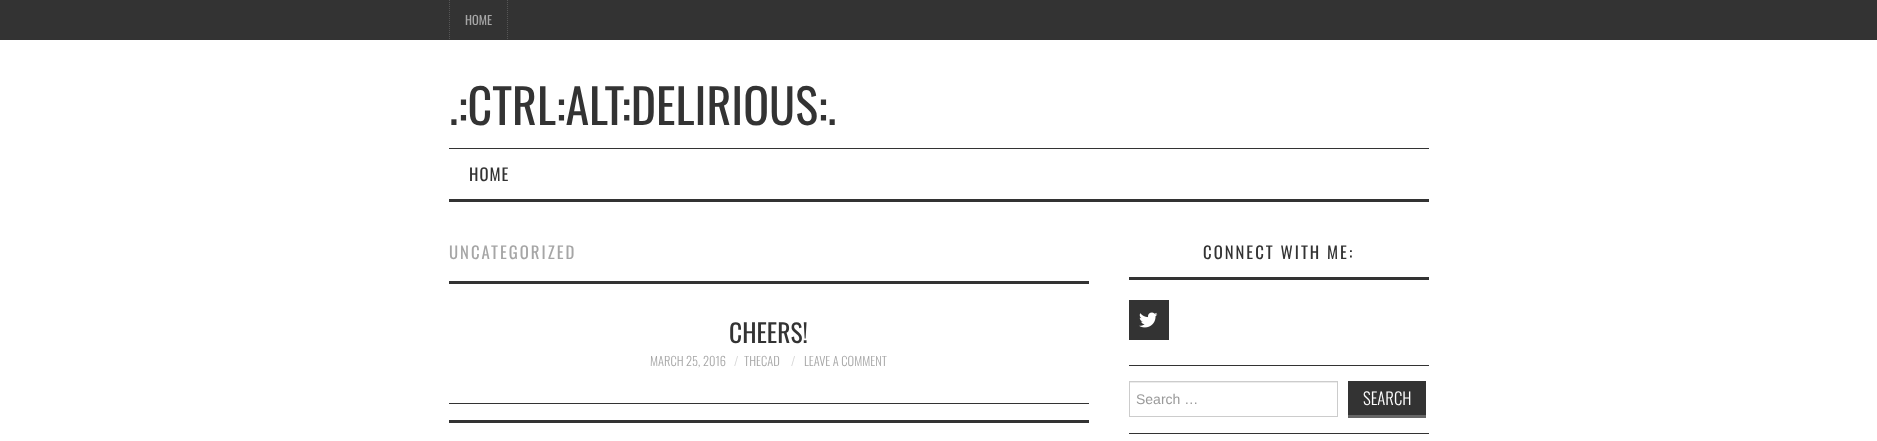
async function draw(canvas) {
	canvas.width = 1877;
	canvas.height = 441;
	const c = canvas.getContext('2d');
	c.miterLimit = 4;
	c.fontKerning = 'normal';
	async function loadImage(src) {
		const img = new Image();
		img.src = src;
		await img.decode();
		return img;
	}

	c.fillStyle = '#fff';
	c.fillRect(0, 0, 1877, 441);
	c.fillStyle = '#333';
	c.fillRect(0, 0, 1877, 40);
	c.beginPath();
	c.moveTo(449.5, 0);
	c.lineTo(449.5, 40);
	c.strokeStyle = '#565656';
	c.setLineDash([1, 1]);
	c.stroke();
	c.beginPath();
	c.moveTo(507.5, 0);
	c.lineTo(507.5, 40);
	c.stroke();
	c.font = '12.5px Oswald';
	c.fillStyle = '#a6a6a6';
	c.fillText('HOME', 465, 25);
	c.font = '48px Oswald';
	c.fillStyle = '#333';
	c.fillText('.:CTRL:ALT:DELIRIOUS:.', 449, 125);
	c.fillRect(449, 148, 980, 1);
	c.fillRect(449, 199, 980, 3);
	c.letterSpacing = '1px';
	c.font = '16.75px Oswald';
	c.fillText('HOME', 469, 181);
	c.fillRect(449, 281, 640, 3);
	c.letterSpacing = '2px';
	c.fillStyle = '#a6a6a6';
	c.fillText('UNCATEGORIZED', 449, 259);
	c.letterSpacing = '0px';
	c.font = '25.5px Oswald';
	c.fillStyle = '#333';
	c.fillText('CHEERS!', 729, 343);
	c.font = '300 12.5px Oswald';
	c.fillStyle = '#a6a6a6';
	c.fillText('MARCH 25, 2016', 650, 366);
	c.fillStyle = '#d6d6d6';
	c.fillText('/', 734, 366);
	c.fillStyle = '#a6a6a6';
	c.fillText('THECAD', 744, 366);
	c.fillStyle = '#d6d6d6';
	c.fillText('/', 791, 366);
	c.fillStyle = '#a6a6a6';
	c.fillText('LEAVE A COMMENT', 804, 366);
	for (const [x, y, w, h, color] of [
		[449, 403, 640, 1, '#333'],
		[449, 420, 640, 3, '#333'],
		[1129, 365, 300, 1, '#333'],
		[1129, 277, 300, 3, '#333'],
	]) {
		c.fillStyle = color;
		c.fillRect(x, y, w, h);
	}
	c.letterSpacing = '2px';
	c.font = '16.75px Oswald';
	c.fillText('CONNECT WITH ME:', 1203, 259);
	c.fillRect(1129, 300, 40, 40);
	c.drawImage(await loadImage('img1.png'), 1139, 312, 19, 16);
	c.fillRect(1129, 433, 300, 1);
	c.fillStyle = '#ececec';
	c.fillRect(1130, 382, 207, 1);
	c.strokeStyle = '#ccc';
	c.setLineDash([]);
	c.strokeRect(1129.5, 381.5, 208, 35);
	c.letterSpacing = '0px';
	c.font = '14px Liberation Sans';
	c.fillStyle = '#999';
	c.fillText('Search …', 1136, 404);
	c.fillStyle = '#333';
	c.fillRect(1348, 381, 78, 34);
	c.fillStyle = '#666';
	c.fillRect(1348, 415, 78, 3);
	c.font = '300 16.75px Oswald';
	c.fillStyle = '#fff';
	c.fillText('SEARCH', 1363, 405);
}

draw(document.querySelector('canvas'));
